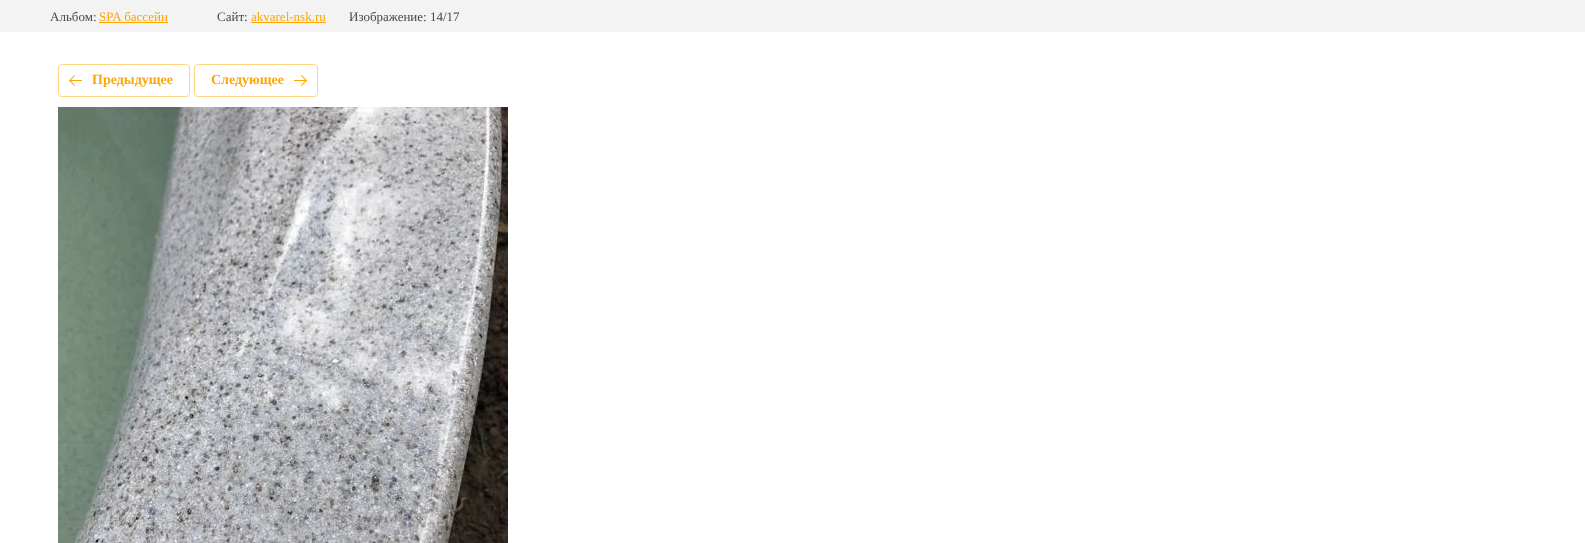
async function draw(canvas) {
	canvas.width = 1585;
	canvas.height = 543;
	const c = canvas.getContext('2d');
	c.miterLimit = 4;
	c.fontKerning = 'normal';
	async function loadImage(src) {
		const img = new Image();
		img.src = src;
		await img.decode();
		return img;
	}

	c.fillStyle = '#fff';
	c.fillRect(0, 0, 1585, 543);
	c.fillStyle = '#f3f3f3';
	c.fillRect(0, 0, 1585, 32);
	c.font = '13px Liberation Serif';
	c.fillStyle = '#484848';
	c.fillText('Альбом:', 50, 21);
	c.fillStyle = '#ffa601';
	c.fillText('SPA бассейн', 99, 21);
	c.fillRect(99, 22, 69, 1);
	c.fillStyle = '#484848';
	c.fillText('Сайт:', 217, 21);
	c.fillStyle = '#ffa601';
	c.fillText('akvarel-nsk.ru', 251, 21);
	c.fillRect(251, 22, 75, 1);
	c.fillStyle = '#484848';
	c.fillText('Изображение: 14/17', 349, 21);
	c.beginPath();
	c.roundRect(58.5, 64.5, 131, 32, 3.5);
	c.strokeStyle = '#ffd380';
	c.stroke();
	c.drawImage(await loadImage('img1.png'), 69, 75, 13, 11);
	c.font = 'bold 14px Liberation Serif';
	c.fillStyle = '#ffa601';
	c.fillText('Предыдущее', 92, 84);
	c.beginPath();
	c.roundRect(194.5, 64.5, 123, 32, 3.5);
	c.stroke();
	c.fillText('Следующее', 211, 84);
	c.drawImage(await loadImage('img2.png'), 294, 75, 13, 11);
	c.drawImage(await loadImage('img3.png'), 58, 107, 450, 436);
}

draw(document.querySelector('canvas'));
